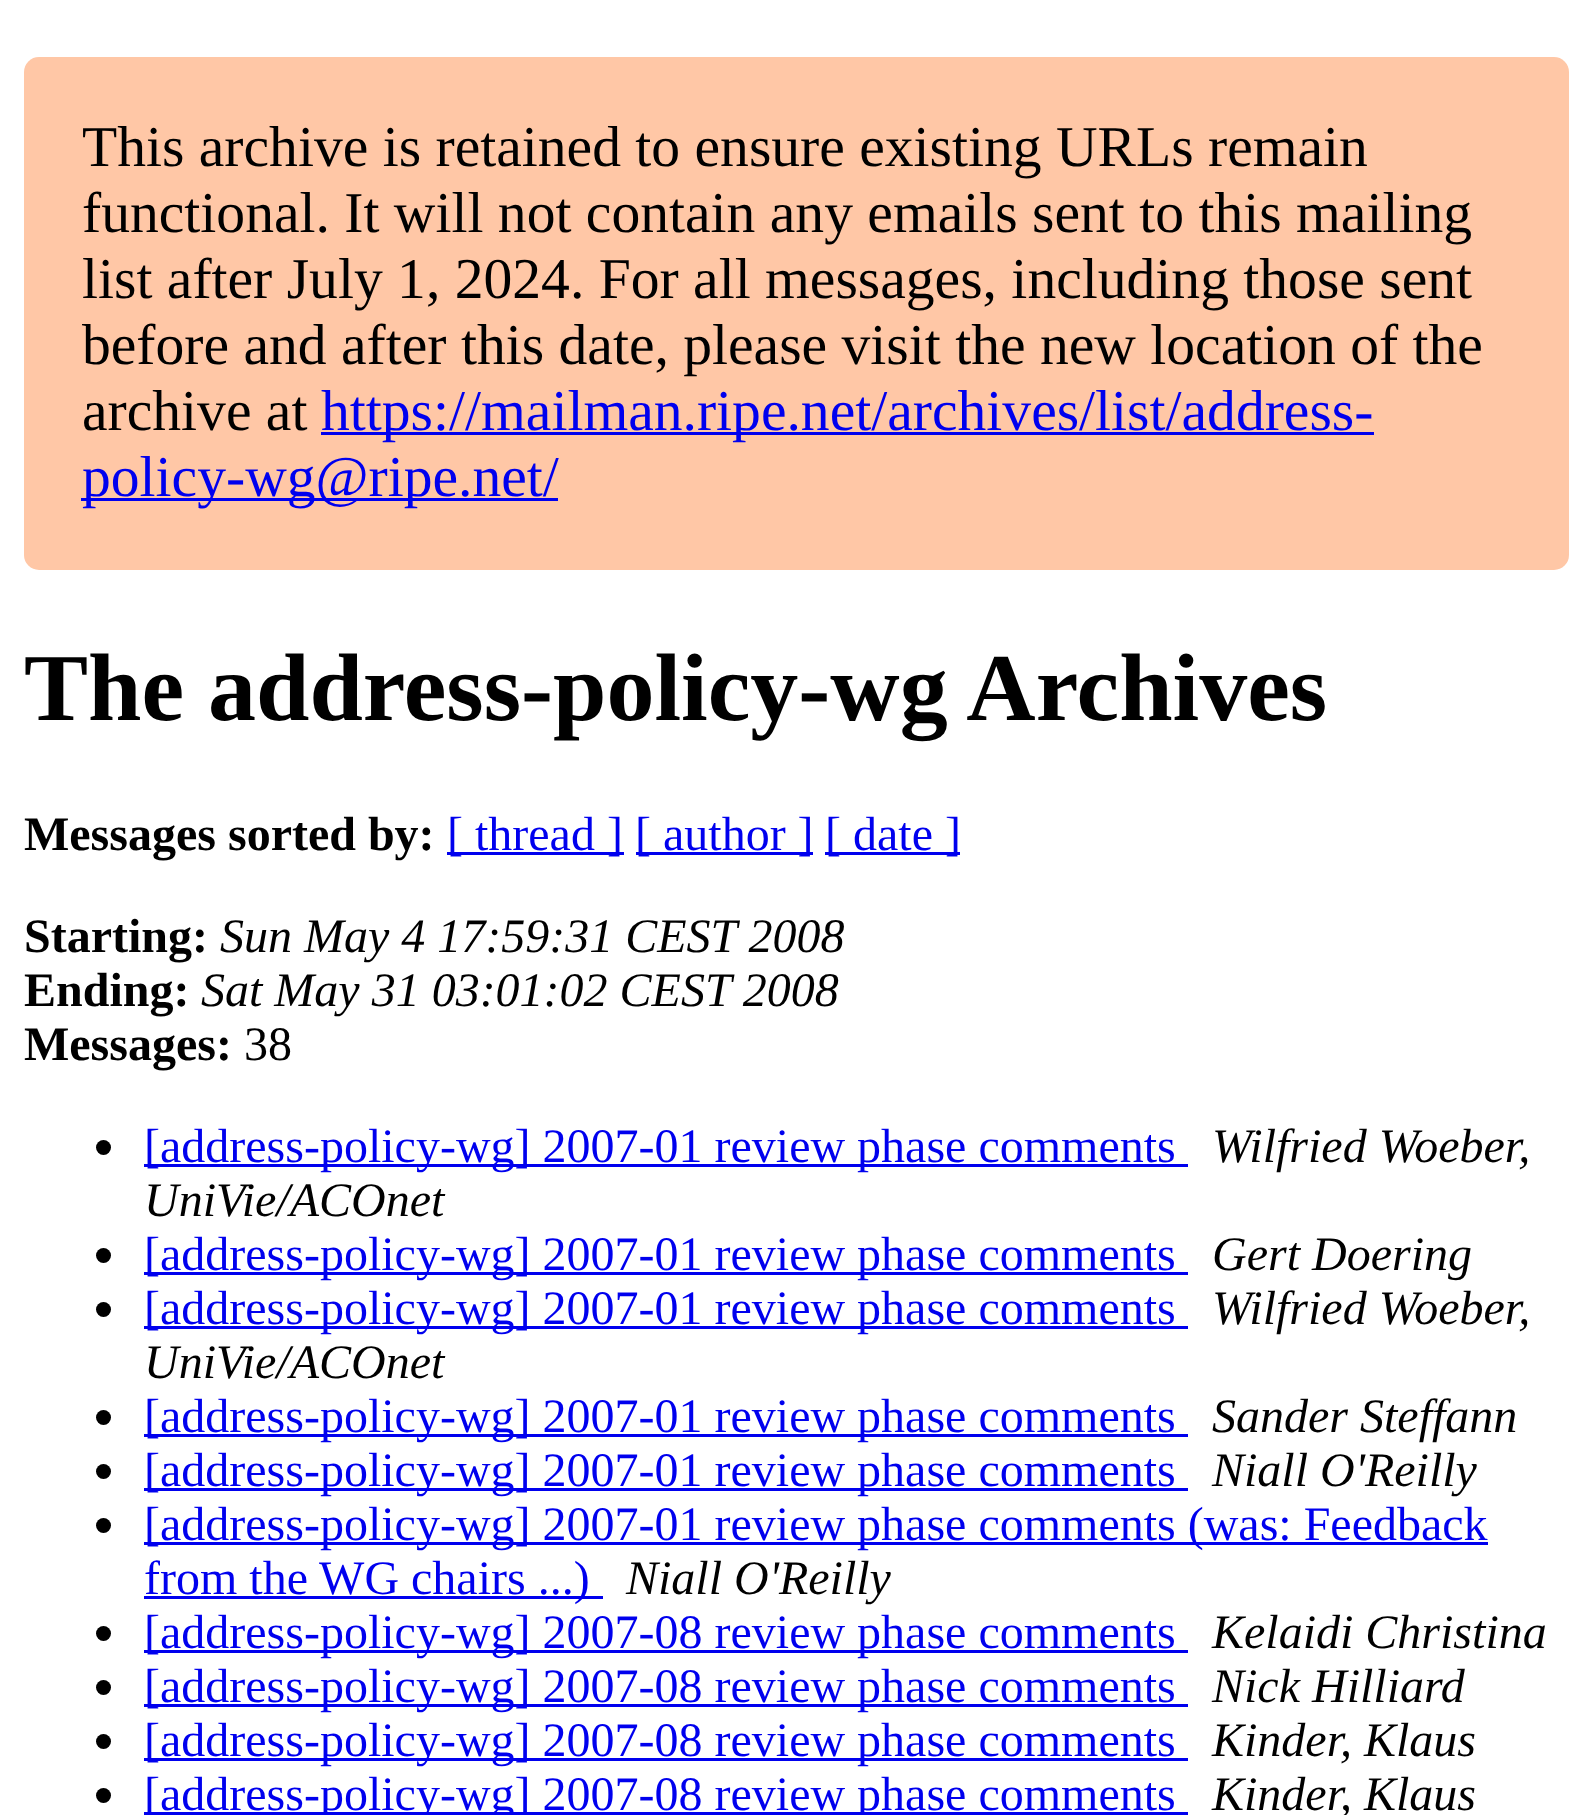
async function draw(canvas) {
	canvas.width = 1593;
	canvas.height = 1815;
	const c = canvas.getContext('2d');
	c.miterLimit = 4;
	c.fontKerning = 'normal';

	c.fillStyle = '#fff';
	c.fillRect(0, 0, 1593, 1815);
	c.fillStyle = '#ffc7a6';
	c.beginPath();
	c.roundRect(24, 57, 1545, 513, 15);
	c.fill();
	c.font = '57.6px Liberation Serif';
	c.fillStyle = '#000';
	for (const [text, x, y] of [
		['This archive is retained to ensure existing URLs remain', 82, 166],
		['functional. It will not contain any emails sent to this mailing', 82, 232],
		['list after July 1, 2024. For all messages, including those sent', 82, 298],
		['before and after this date, please visit the new location of the', 82, 364],
		['archive at', 82, 430],
	]) {
		c.fillText(text, x, y);
	}
	c.fillStyle = '#00e';
	c.fillRect(321, 432, 1053, 3);
	c.fillText('https://mailman.ripe.net/archives/list/address-', 321, 430);
	c.fillRect(81, 498, 477, 3);
	c.fillText('policy-wg@ripe.net/', 82, 496);
	c.font = 'bold 96px Liberation Serif';
	c.fillStyle = '#000';
	c.fillText('The address-policy-wg Archives', 24, 720);
	c.font = 'bold 48px Liberation Serif';
	c.fillText('Messages sorted by:', 24, 850);
	c.fillStyle = '#00e';
	c.fillRect(447, 852, 177, 3);
	c.font = '48px Liberation Serif';
	c.fillText('[ thread ]', 447, 850);
	c.fillRect(636, 852, 177, 3);
	c.fillText('[ author ]', 635, 850);
	c.fillRect(825, 852, 135, 3);
	c.fillText('[ date ]', 825, 850);
	c.font = 'bold 48px Liberation Serif';
	c.fillStyle = '#000';
	c.fillText('Starting:', 24, 952);
	c.font = 'italic 48px Liberation Serif';
	c.fillText('Sun May 4 17:59:31 CEST 2008', 220, 952);
	c.font = 'bold 48px Liberation Serif';
	c.fillText('Ending:', 24, 1006);
	c.font = 'italic 48px Liberation Serif';
	c.fillText('Sat May 31 03:01:02 CEST 2008', 201, 1006);
	c.font = 'bold 48px Liberation Serif';
	c.fillText('Messages:', 24, 1060);
	c.font = '48px Liberation Serif';
	c.fillText('38', 244, 1060);
	c.beginPath();
	c.arc(103.5, 1147.5, 7.5, 0, 2 * Math.PI);
	c.fill();
	c.fillStyle = '#00e';
	c.fillRect(144, 1164, 1044, 3);
	c.fillText('[address-policy-wg] 2007-01 review phase comments', 144, 1162);
	c.font = 'italic 48px Liberation Serif';
	c.fillStyle = '#000';
	c.fillText('Wilfried Woeber,', 1212, 1162);
	c.fillText('UniVie/ACOnet', 144, 1216);
	c.beginPath();
	c.arc(103.5, 1255.5, 7.5, 0, 2 * Math.PI);
	c.fill();
	c.fillStyle = '#00e';
	c.fillRect(144, 1272, 1044, 3);
	c.font = '48px Liberation Serif';
	c.fillText('[address-policy-wg] 2007-01 review phase comments', 144, 1270);
	c.font = 'italic 48px Liberation Serif';
	c.fillStyle = '#000';
	c.fillText('Gert Doering', 1212, 1270);
	c.beginPath();
	c.arc(103.5, 1309.5, 7.5, 0, 2 * Math.PI);
	c.fill();
	c.fillStyle = '#00e';
	c.fillRect(144, 1326, 1044, 3);
	c.font = '48px Liberation Serif';
	c.fillText('[address-policy-wg] 2007-01 review phase comments', 144, 1324);
	c.font = 'italic 48px Liberation Serif';
	c.fillStyle = '#000';
	c.fillText('Wilfried Woeber,', 1212, 1324);
	c.fillText('UniVie/ACOnet', 144, 1378);
	c.beginPath();
	c.arc(103.5, 1417.5, 7.5, 0, 2 * Math.PI);
	c.fill();
	c.fillStyle = '#00e';
	c.fillRect(144, 1434, 1044, 3);
	c.font = '48px Liberation Serif';
	c.fillText('[address-policy-wg] 2007-01 review phase comments', 144, 1432);
	c.font = 'italic 48px Liberation Serif';
	c.fillStyle = '#000';
	c.fillText('Sander Steffann', 1212, 1432);
	c.beginPath();
	c.arc(103.5, 1471.5, 7.5, 0, 2 * Math.PI);
	c.fill();
	c.fillStyle = '#00e';
	c.fillRect(144, 1488, 1044, 3);
	c.font = '48px Liberation Serif';
	c.fillText('[address-policy-wg] 2007-01 review phase comments', 144, 1486);
	c.font = 'italic 48px Liberation Serif';
	c.fillStyle = '#000';
	c.fillText('Niall O\'Reilly', 1212, 1486);
	c.beginPath();
	c.arc(103.5, 1525.5, 7.5, 0, 2 * Math.PI);
	c.fill();
	c.fillStyle = '#00e';
	c.fillRect(144, 1542, 1344, 3);
	c.font = '48px Liberation Serif';
	c.fillText('[address-policy-wg] 2007-01 review phase comments (was: Feedback', 144, 1540);
	c.fillRect(144, 1596, 459, 3);
	c.fillText('from the WG chairs ...)', 144, 1594);
	c.font = 'italic 48px Liberation Serif';
	c.fillStyle = '#000';
	c.fillText('Niall O\'Reilly', 626, 1594);
	c.beginPath();
	c.arc(103.5, 1633.5, 7.5, 0, 2 * Math.PI);
	c.fill();
	c.fillStyle = '#00e';
	c.fillRect(144, 1650, 1044, 3);
	c.font = '48px Liberation Serif';
	c.fillText('[address-policy-wg] 2007-08 review phase comments', 144, 1648);
	c.font = 'italic 48px Liberation Serif';
	c.fillStyle = '#000';
	c.fillText('Kelaidi Christina', 1212, 1648);
	c.beginPath();
	c.arc(103.5, 1687.5, 7.5, 0, 2 * Math.PI);
	c.fill();
	c.fillStyle = '#00e';
	c.fillRect(144, 1704, 1044, 3);
	c.font = '48px Liberation Serif';
	c.fillText('[address-policy-wg] 2007-08 review phase comments', 144, 1702);
	c.font = 'italic 48px Liberation Serif';
	c.fillStyle = '#000';
	c.fillText('Nick Hilliard', 1212, 1702);
	c.beginPath();
	c.arc(103.5, 1741.5, 7.5, 0, 2 * Math.PI);
	c.fill();
	c.fillStyle = '#00e';
	c.fillRect(144, 1758, 1044, 3);
	c.font = '48px Liberation Serif';
	c.fillText('[address-policy-wg] 2007-08 review phase comments', 144, 1756);
	c.font = 'italic 48px Liberation Serif';
	c.fillStyle = '#000';
	c.fillText('Kinder, Klaus', 1212, 1756);
	c.beginPath();
	c.arc(103.5, 1795.5, 7.5, 0, 2 * Math.PI);
	c.fill();
	c.fillStyle = '#00e';
	c.fillRect(144, 1812, 1044, 3);
	c.font = '48px Liberation Serif';
	c.fillText('[address-policy-wg] 2007-08 review phase comments', 144, 1810);
	c.font = 'italic 48px Liberation Serif';
	c.fillStyle = '#000';
	c.fillText('Kinder, Klaus', 1212, 1810);
}

draw(document.querySelector('canvas'));
